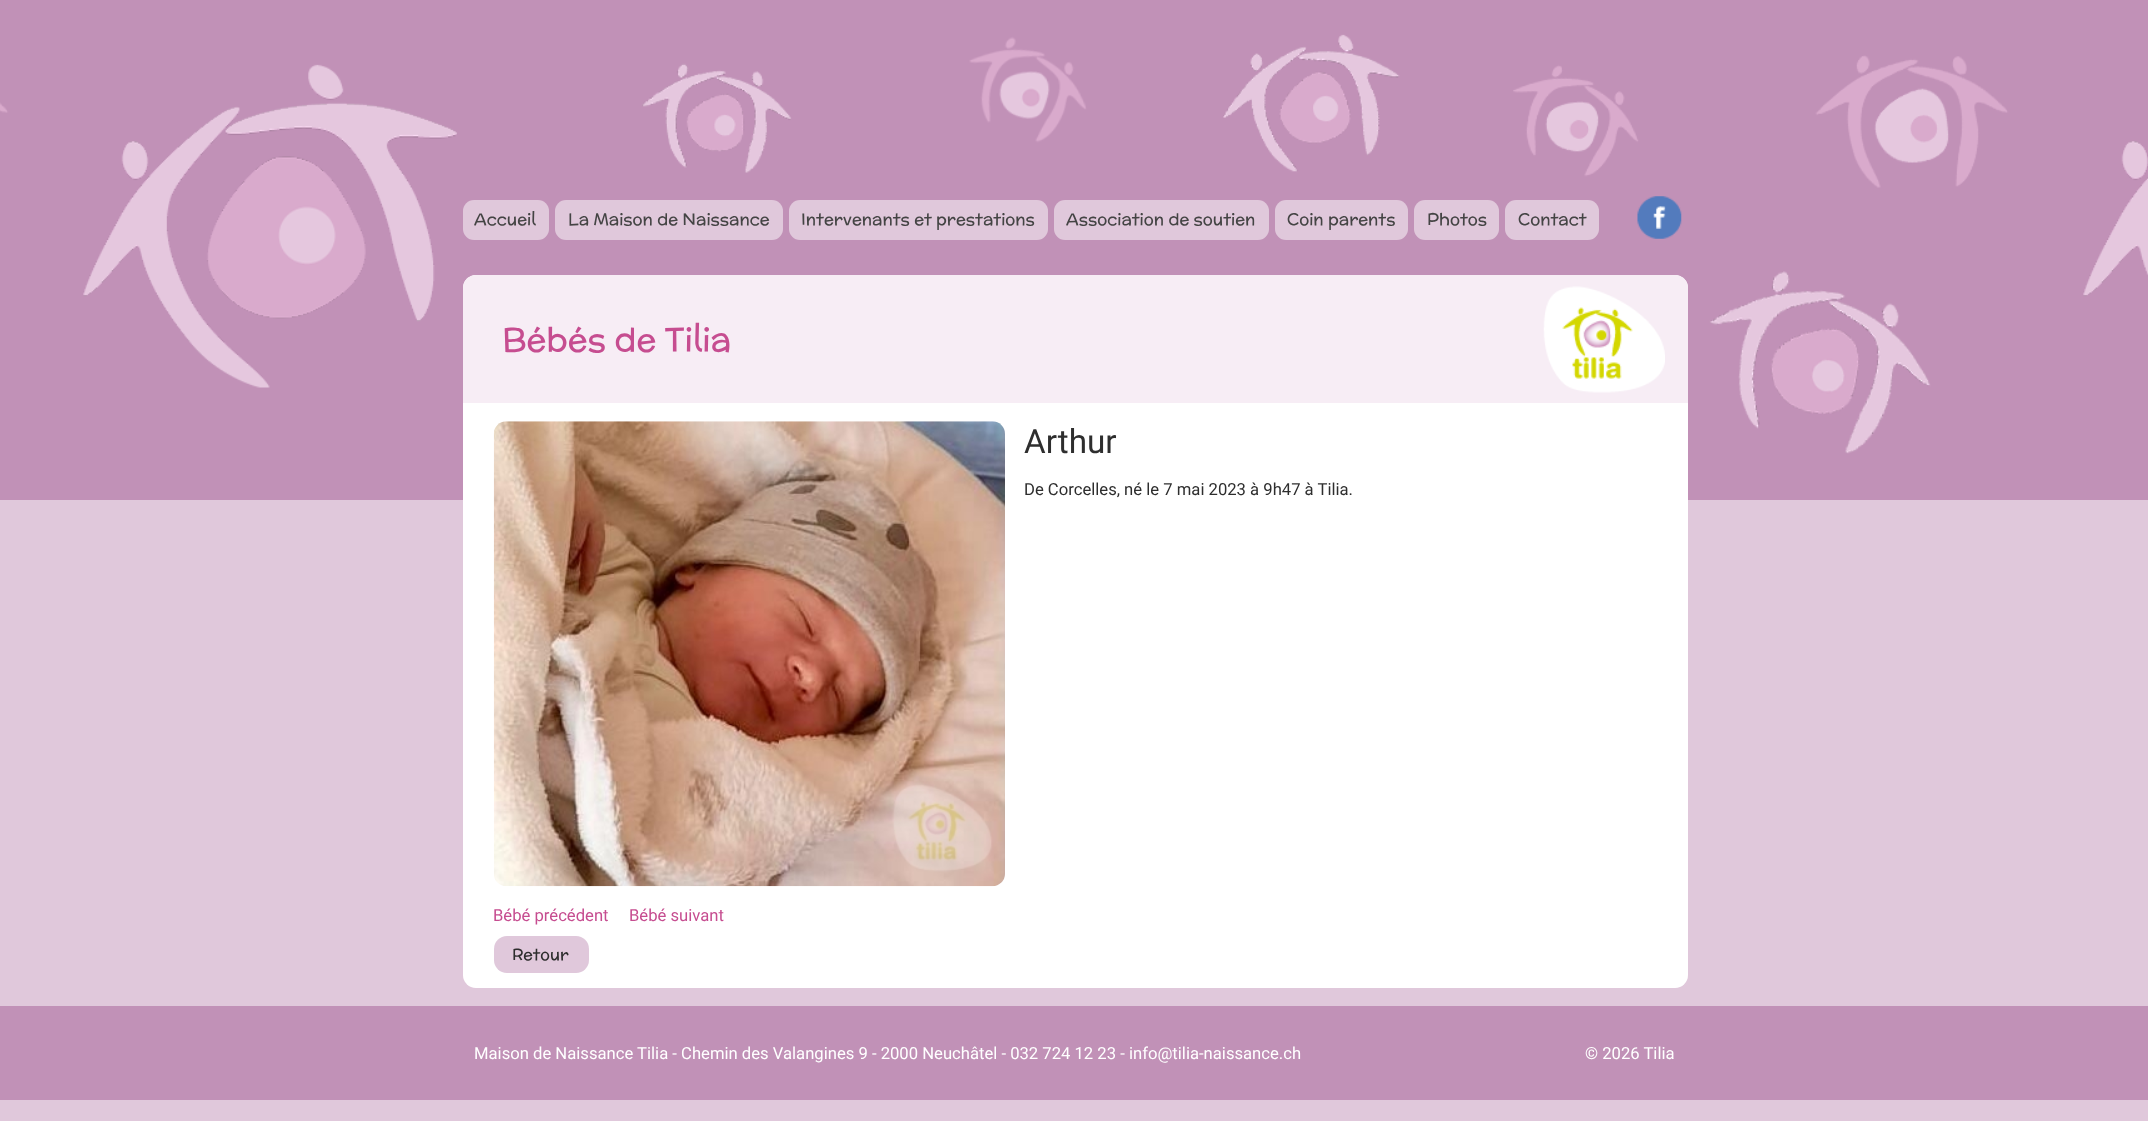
async function draw(canvas) {
	canvas.width = 2148;
	canvas.height = 1121;
	const c = canvas.getContext('2d');
	c.miterLimit = 4;
	c.fontKerning = 'normal';
	async function loadImage(src) {
		const img = new Image();
		img.src = src;
		await img.decode();
		return img;
	}

	c.fillStyle = '#e0c8db';
	c.fillRect(0, 0, 2148, 1121);
	c.drawImage(await loadImage('img1.png'), 0, 0, 2148, 500);
	c.beginPath();
	c.roundRect(463, 200, 86, 40, 11);
	c.fill();
	c.font = '16.65px McLaren';
	c.fillStyle = '#444';
	c.fillText('Accueil', 474, 225);
	c.fillStyle = '#e0c8db';
	c.beginPath();
	c.roundRect(555, 200, 228, 40, 11);
	c.fill();
	c.fillStyle = '#444';
	c.fillText('La Maison de Naissance', 568, 225);
	c.fillStyle = '#e0c8db';
	c.beginPath();
	c.roundRect(789, 200, 259, 40, 11);
	c.fill();
	c.fillStyle = '#444';
	c.fillText('Intervenants et prestations', 801, 225);
	c.fillStyle = '#e0c8db';
	c.beginPath();
	c.roundRect(1054, 200, 215, 40, 11);
	c.fill();
	c.fillStyle = '#444';
	c.fillText('Association de soutien', 1066, 225);
	c.fillStyle = '#e0c8db';
	c.beginPath();
	c.roundRect(1275, 200, 133, 40, 11);
	c.fill();
	c.fillStyle = '#444';
	c.fillText('Coin parents', 1287, 225);
	c.fillStyle = '#e0c8db';
	c.beginPath();
	c.roundRect(1414, 200, 85, 40, 11);
	c.fill();
	c.fillStyle = '#444';
	c.fillText('Photos', 1427, 225);
	c.fillStyle = '#e0c8db';
	c.beginPath();
	c.roundRect(1505, 200, 94, 40, 11);
	c.fill();
	c.fillStyle = '#444';
	c.fillText('Contact', 1518, 225);
	c.drawImage(await loadImage('img2.png'), 1637, 196, 45, 43);
	c.fillStyle = '#fff';
	c.beginPath();
	c.roundRect(463, 275, 1225, 713, 13);
	c.fill();
	c.fillStyle = '#f7edf5';
	c.beginPath();
	c.roundRect(463, 275, 1225, 128, [13, 13, 0, 0]);
	c.fill();
	c.drawImage(await loadImage('img3.png'), 1543, 286, 122, 107);
	c.font = '33.25px McLaren';
	c.fillStyle = '#c64d90';
	c.fillText('Bébés de Tilia', 502, 351);
	c.drawImage(await loadImage('img4.png'), 493, 421, 512, 466);
	c.font = '33.25px Roboto';
	c.fillStyle = '#2e2e2e';
	c.fillText('Arthur', 1024, 453);
	c.font = '16.65px Roboto';
	c.fillText('De Corcelles, né le 7 mai 2023 à 9h47 à Tilia.', 1024, 495);
	c.fillStyle = '#c64d90';
	c.fillText('Bébé précédent', 493, 921);
	c.fillText('Bébé suivant', 629, 921);
	c.fillStyle = '#e0c8db';
	c.beginPath();
	c.roundRect(494, 936, 95, 37, 13);
	c.fill();
	c.font = '16px McLaren';
	c.fillStyle = '#2e2e2e';
	c.fillText('Retour', 512, 960);
	c.fillStyle = '#c191b7';
	c.fillRect(0, 1006, 2148, 94);
	c.font = '16.65px Roboto';
	c.fillStyle = '#fff';
	c.fillText('Maison de Naissance Tilia - Chemin des Valangines 9 - 2000 Neuchâtel - 032 724 12 23 - info@tilia-naissance.ch', 474, 1059);
	c.fillText('© 2026 Tilia', 1585, 1059);
}

draw(document.querySelector('canvas'));
